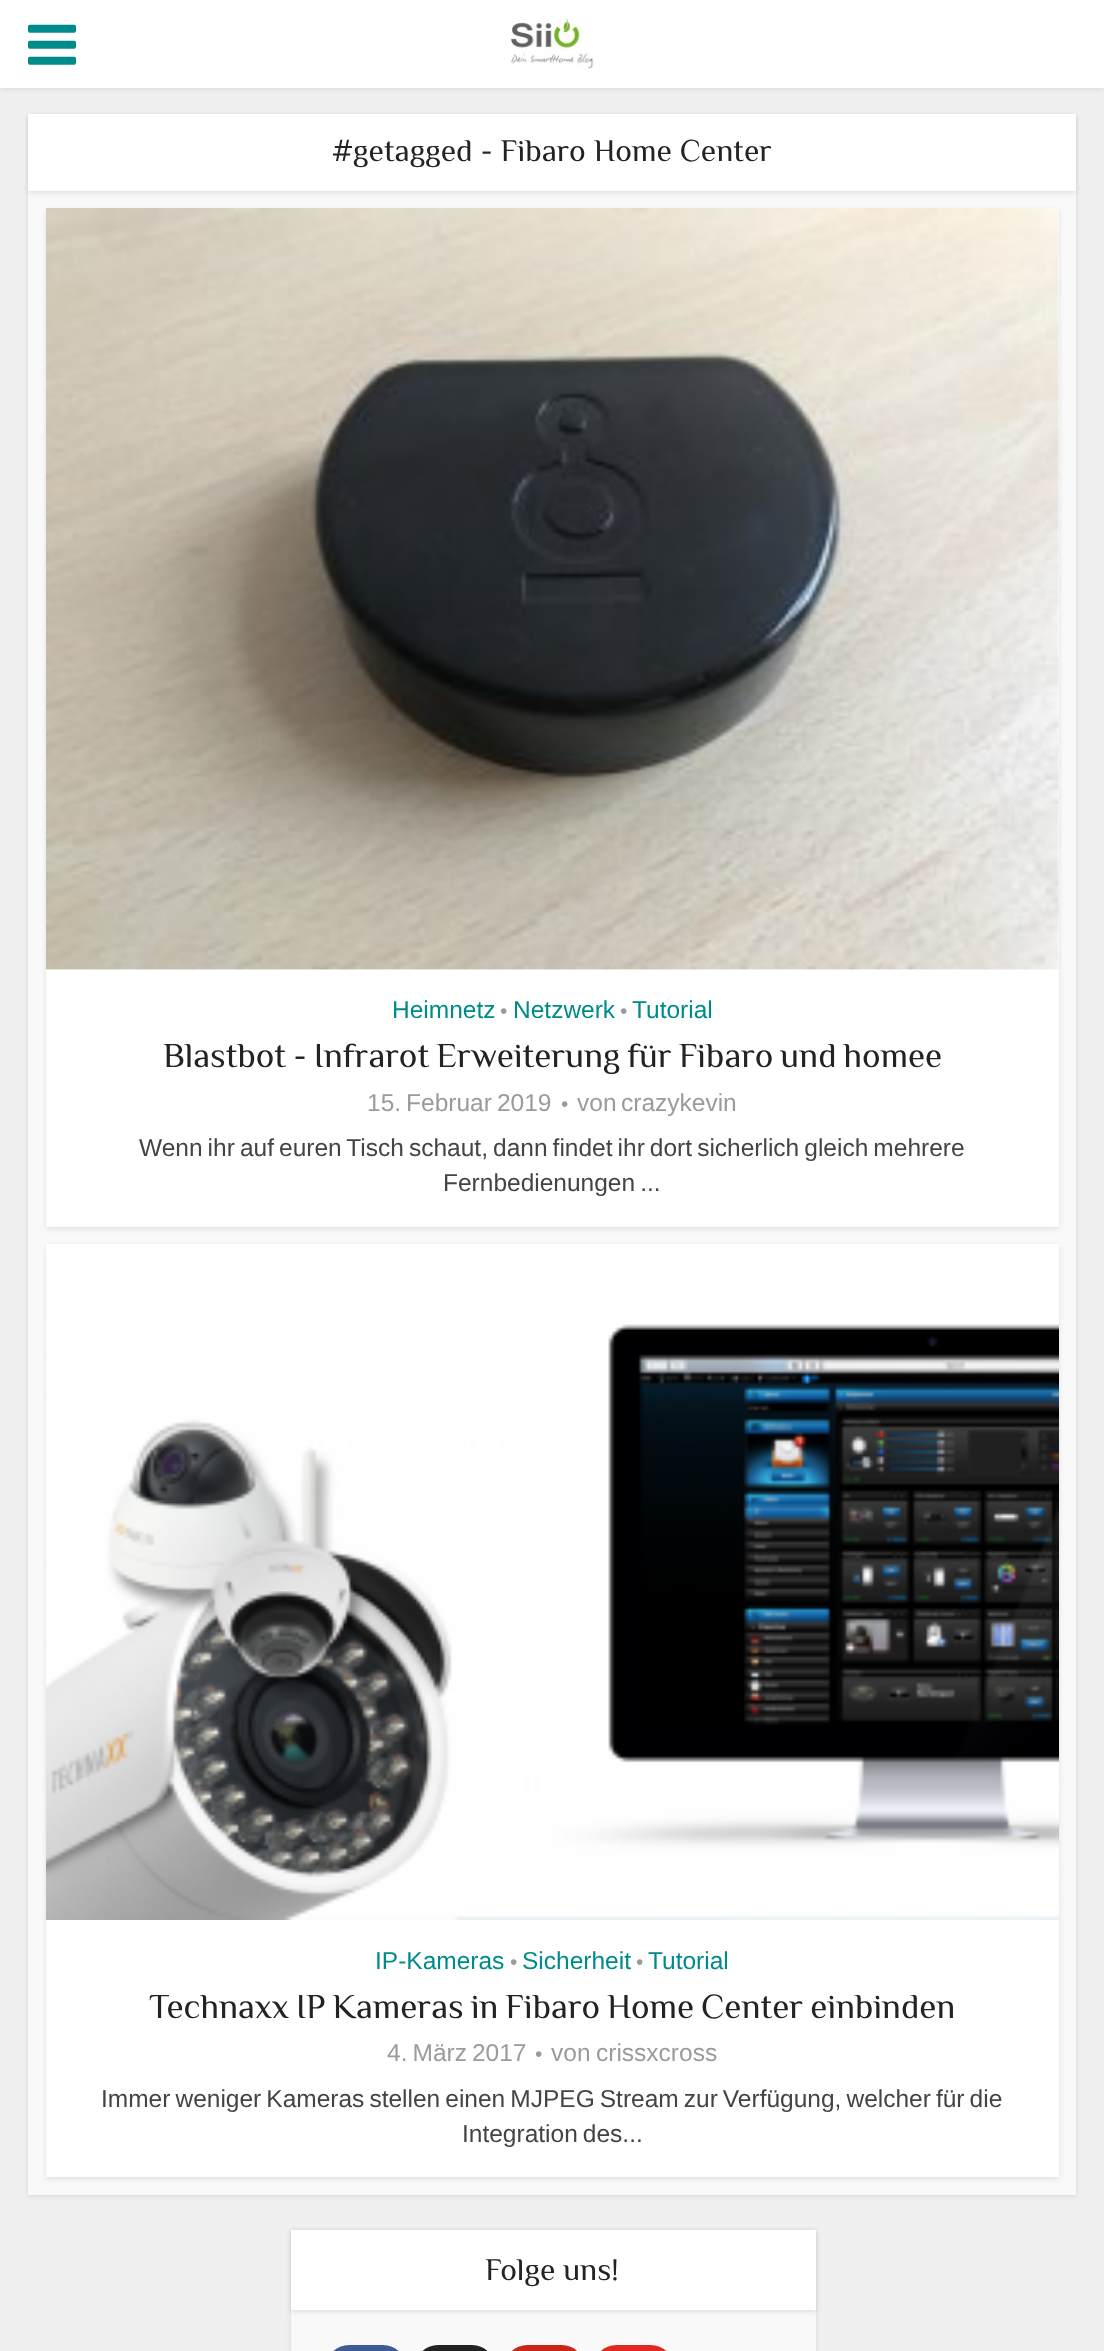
async function draw(canvas) {
	canvas.width = 1104;
	canvas.height = 2351;
	const c = canvas.getContext('2d');
	c.miterLimit = 4;
	c.fontKerning = 'normal';
	async function loadImage(src) {
		const img = new Image();
		img.src = src;
		await img.decode();
		return img;
	}

	c.fillStyle = '#f0f0f0';
	c.fillRect(0, 0, 1104, 2351);
	c.fillStyle = '#0000001a';
	c.filter = 'blur(2.5px)';
	c.beginPath();
	c.rect(0, 2, 1104, 87);
	c.fill();
	c.filter = 'none';
	c.fillStyle = '#fff';
	c.fillRect(0, 0, 1104, 88);
	c.drawImage(await loadImage('img1.png'), 28, 24, 48, 41);
	c.drawImage(await loadImage('img2.png'), 511, 19, 83, 50);
	c.fillStyle = '#0000001a';
	c.filter = 'blur(2.5px)';
	c.beginPath();
	c.rect(28, 116, 1048, 2080);
	c.fill();
	c.filter = 'none';
	c.fillStyle = '#f9f9f9';
	c.fillRect(28, 191, 1048, 2004);
	c.fillStyle = '#0000001a';
	c.filter = 'blur(2.5px)';
	c.beginPath();
	c.rect(28, 116, 1048, 77);
	c.fill();
	c.filter = 'none';
	c.fillStyle = '#fff';
	c.fillRect(28, 114, 1048, 77);
	c.font = '31.5px Philosopher';
	c.fillStyle = '#232323';
	c.fillText('#getagged - Fibaro Home Center', 332, 161);
	c.fillStyle = '#0000001a';
	c.filter = 'blur(2.5px)';
	c.beginPath();
	c.rect(46, 210, 1013, 1019);
	c.fill();
	c.filter = 'none';
	c.fillStyle = '#fff';
	c.fillRect(46, 208, 1013, 1019);
	c.drawImage(await loadImage('img3.png'), 46, 208, 1013, 762);
	c.font = '24.5px Liberation Sans';
	c.fillStyle = '#008b8b';
	c.fillText('Heimnetz', 392, 1018);
	c.font = '21px Liberation Sans';
	c.fillStyle = '#9b9b9b';
	c.fillText('•', 500, 1018);
	c.font = '24.5px Liberation Sans';
	c.fillStyle = '#008b8b';
	c.fillText('Netzwerk', 513, 1018);
	c.font = '21px Liberation Sans';
	c.fillStyle = '#9b9b9b';
	c.fillText('•', 620, 1018);
	c.font = '24.5px Liberation Sans';
	c.fillStyle = '#008b8b';
	c.fillText('Tutorial', 632, 1018);
	c.wordSpacing = '-1.75px';
	c.font = '35px Philosopher';
	c.fillStyle = '#232323';
	c.fillText('Blastbot - Infrarot Erweiterung für Fibaro und homee', 163, 1067);
	c.font = '24.5px Liberation Sans';
	c.fillStyle = '#9b9b9b';
	c.fillText('15. Februar 2019', 367, 1111);
	c.wordSpacing = '0px';
	c.font = '21px Liberation Sans';
	c.fillText('•', 561, 1111);
	c.font = '24.5px Liberation Sans';
	c.fillText('von', 577, 1111);
	c.fillText('crazykevin', 621, 1111);
	c.wordSpacing = '-1.75px';
	c.fillStyle = '#444';
	c.fillText('Wenn ihr auf euren Tisch schaut, dann findet ihr dort sicherlich gleich mehrere', 139, 1156);
	c.fillText('Fernbedienungen ...', 443, 1191);
	c.fillStyle = '#0000001a';
	c.filter = 'blur(2.5px)';
	c.beginPath();
	c.rect(46, 1246, 1013, 933);
	c.fill();
	c.filter = 'none';
	c.fillStyle = '#fff';
	c.fillRect(46, 1244, 1013, 933);
	c.drawImage(await loadImage('img4.png'), 46, 1324, 1013, 596);
	c.wordSpacing = '0px';
	c.fillStyle = '#008b8b';
	c.fillText('IP-Kameras', 375, 1969);
	c.font = '21px Liberation Sans';
	c.fillStyle = '#9b9b9b';
	c.fillText('•', 510, 1969);
	c.font = '24.5px Liberation Sans';
	c.fillStyle = '#008b8b';
	c.fillText('Sicherheit', 522, 1969);
	c.font = '21px Liberation Sans';
	c.fillStyle = '#9b9b9b';
	c.fillText('•', 636, 1969);
	c.font = '24.5px Liberation Sans';
	c.fillStyle = '#008b8b';
	c.fillText('Tutorial', 648, 1969);
	c.wordSpacing = '-1.75px';
	c.font = '35px Philosopher';
	c.fillStyle = '#232323';
	c.fillText('Technaxx IP Kameras in Fibaro Home Center einbinden', 149, 2018);
	c.font = '24.5px Liberation Sans';
	c.fillStyle = '#9b9b9b';
	c.fillText('4. März 2017', 387, 2061);
	c.wordSpacing = '0px';
	c.font = '21px Liberation Sans';
	c.fillText('•', 535, 2061);
	c.font = '24.5px Liberation Sans';
	c.fillText('von', 551, 2061);
	c.fillText('crissxcross', 596, 2061);
	c.wordSpacing = '-1.75px';
	c.fillStyle = '#444';
	c.fillText('Immer weniger Kameras stellen einen MJPEG Stream zur Verfügung, welcher für die', 101, 2107);
	c.fillText('Integration des...', 462, 2142);
	c.fillStyle = '#0000001a';
	c.filter = 'blur(2.5px)';
	c.beginPath();
	c.rect(291, 2231, 525, 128);
	c.fill();
	c.filter = 'none';
	c.fillStyle = '#f9f9f9';
	c.fillRect(291, 2310, 525, 41);
	c.fillStyle = '#0000001a';
	c.filter = 'blur(2.5px)';
	c.beginPath();
	c.rect(291, 2231, 525, 81);
	c.fill();
	c.filter = 'none';
	c.fillStyle = '#fff';
	c.fillRect(291, 2230, 525, 80);
	c.wordSpacing = '0px';
	c.font = '31.5px Philosopher';
	c.fillStyle = '#232323';
	c.fillText('Folge uns!', 485, 2280);
	c.fillStyle = '#3e5b98';
	c.beginPath();
	c.roundRect(326, 2345, 80, 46, 40);
	c.fill();
	c.fillStyle = '#222';
	c.beginPath();
	c.roundRect(415, 2345, 80, 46, 40);
	c.fill();
	c.fillStyle = '#c92619';
	c.beginPath();
	c.roundRect(504, 2345, 81, 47, 40.5);
	c.fill();
	c.fillStyle = '#e02a20';
	c.beginPath();
	c.roundRect(593, 2345, 81, 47, 40.5);
	c.fill();
}

draw(document.querySelector('canvas'));
